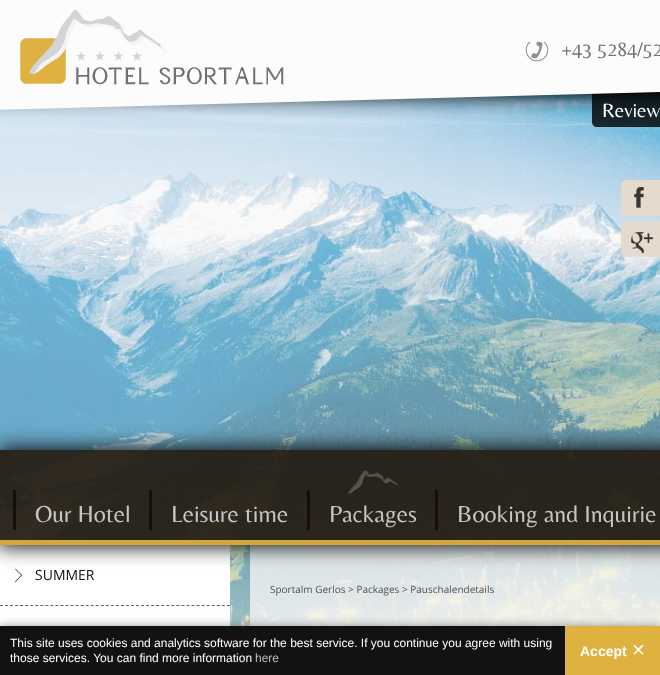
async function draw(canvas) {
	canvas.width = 660;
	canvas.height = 675;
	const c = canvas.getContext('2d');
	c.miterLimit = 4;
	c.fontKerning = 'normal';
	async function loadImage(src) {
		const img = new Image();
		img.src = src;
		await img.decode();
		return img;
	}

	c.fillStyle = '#f4f4f4';
	c.fillRect(0, 0, 660, 675);
	c.drawImage(await loadImage('img7.png'), 0, 92, 660, 534);
	c.fillStyle = '#000000cc';
	c.beginPath();
	c.moveTo(592, 80);
	c.lineTo(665, 80);
	c.lineTo(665, 122);
	c.bezierCurveTo(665, 125, 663, 127, 660, 127);
	c.lineTo(597, 127);
	c.bezierCurveTo(594, 127, 592, 125, 592, 122);
	c.closePath();
	c.fill();
	c.fillStyle = '#000';
	c.filter = 'blur(10px)';
	c.beginPath();
	c.rect(-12, -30, 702, 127);
	c.fill();
	c.filter = 'none';
	c.font = '20px Belleza';
	c.fillStyle = '#fff';
	c.fillText('Review', 602, 117);
	c.fillStyle = '#fcfcfc';
	c.beginPath();
	c.moveTo(-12, -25);
	c.lineTo(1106, -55);
	c.lineTo(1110, 80);
	c.lineTo(-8, 110);
	c.closePath();
	c.fill();
	c.drawImage(await loadImage('img1.png'), 20, 10, 264, 75);
	c.drawImage(await loadImage('img2.png'), 525, 42, 24, 20);
	c.fillStyle = '#747578';
	c.fillText('+43 5284/52', 561, 56);
	c.drawImage(await loadImage('img3.png'), 621, 180, 39, 36);
	c.drawImage(await loadImage('img4.png'), 621, 221, 39, 36);
	c.drawImage(await loadImage('img8.png'), 0, 492, 660, 134);
	c.fillStyle = '#fff';
	c.fillRect(0, 545, 230, 81);
	c.drawImage(await loadImage('img6.png'), 15, 568, 7, 14);
	c.fillStyle = '#f4f4f4cc';
	c.fillRect(250, 545, 410, 81);
	c.save();
	c.beginPath();
	c.moveTo(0, 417);
	c.lineTo(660, 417);
	c.lineTo(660, 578);
	c.lineTo(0, 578);
	c.closePath();
	c.moveTo(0, 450);
	c.lineTo(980, 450);
	c.lineTo(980, 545);
	c.lineTo(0, 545);
	c.closePath();
	c.clip('evenodd');
	c.fillStyle = '#000000ed';
	c.filter = 'blur(10px)';
	c.beginPath();
	c.rect(-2, 448, 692, 99);
	c.fill();
	c.filter = 'none';
	c.restore();
	c.fillStyle = '#241c12ed';
	c.fillRect(0, 450, 660, 95);
	c.fillStyle = '#100a02d1';
	c.fillRect(13, 490, 3, 40);
	c.font = '24px Belleza';
	c.fillStyle = '#c5c5c5';
	c.fillText('Our Hotel', 35, 522);
	c.fillStyle = '#150f07';
	c.fillRect(149, 490, 3, 40);
	c.fillStyle = '#c5c5c5';
	c.fillText('Leisure time', 171, 522);
	c.fillStyle = '#150f07';
	c.fillRect(307, 490, 3, 40);
	c.drawImage(await loadImage('img5.png'), 348, 470, 50, 24);
	c.fillStyle = '#c5c5c5';
	c.fillText('Packages', 329, 522);
	c.fillStyle = '#150f07';
	c.fillRect(435, 490, 3, 40);
	c.fillStyle = '#c5c5c5';
	c.fillText('Booking and Inquirie', 457, 522);
	c.beginPath();
	c.moveTo(0, 605.5);
	c.lineTo(230, 605.5);
	c.strokeStyle = '#626462';
	c.setLineDash([3, 2.04]);
	c.stroke();
	c.font = '14px Open Sans';
	c.fillStyle = '#0f0f0f';
	c.fillText('SUMMER', 35, 580);
	c.font = '10px Open Sans';
	c.fillStyle = '#505050';
	c.fillText('Sportalm Gerlos > Packages > Pauschalendetails', 270, 593);
	c.fillStyle = '#dfb140ed';
	c.fillRect(0, 540, 660, 5);
	c.fillStyle = '#00000066';
	c.filter = 'blur(5px)';
	c.beginPath();
	c.rect(0, 626, 660, 49);
	c.fill();
	c.filter = 'none';
	c.fillStyle = '#121212';
	c.fillRect(0, 626, 565, 49);
	c.font = '12px Liberation Sans';
	c.fillStyle = '#fff';
	c.fillText('This site uses cookies and analytics software for the best service. If you continue you agree with using', 10, 647);
	c.fillText('those services. You can find more information', 10, 662);
	c.fillStyle = '#bebebe';
	c.fillText('here', 255, 662);
	c.fillStyle = '#dfb140';
	c.fillRect(565, 626, 95, 49);
	c.font = 'bold 14px Liberation Sans';
	c.fillStyle = '#fff';
	c.fillText('Accept', 580, 656);
	c.font = '22px Liberation Sans';
	c.fillText('×', 632, 657);
}

draw(document.querySelector('canvas'));
